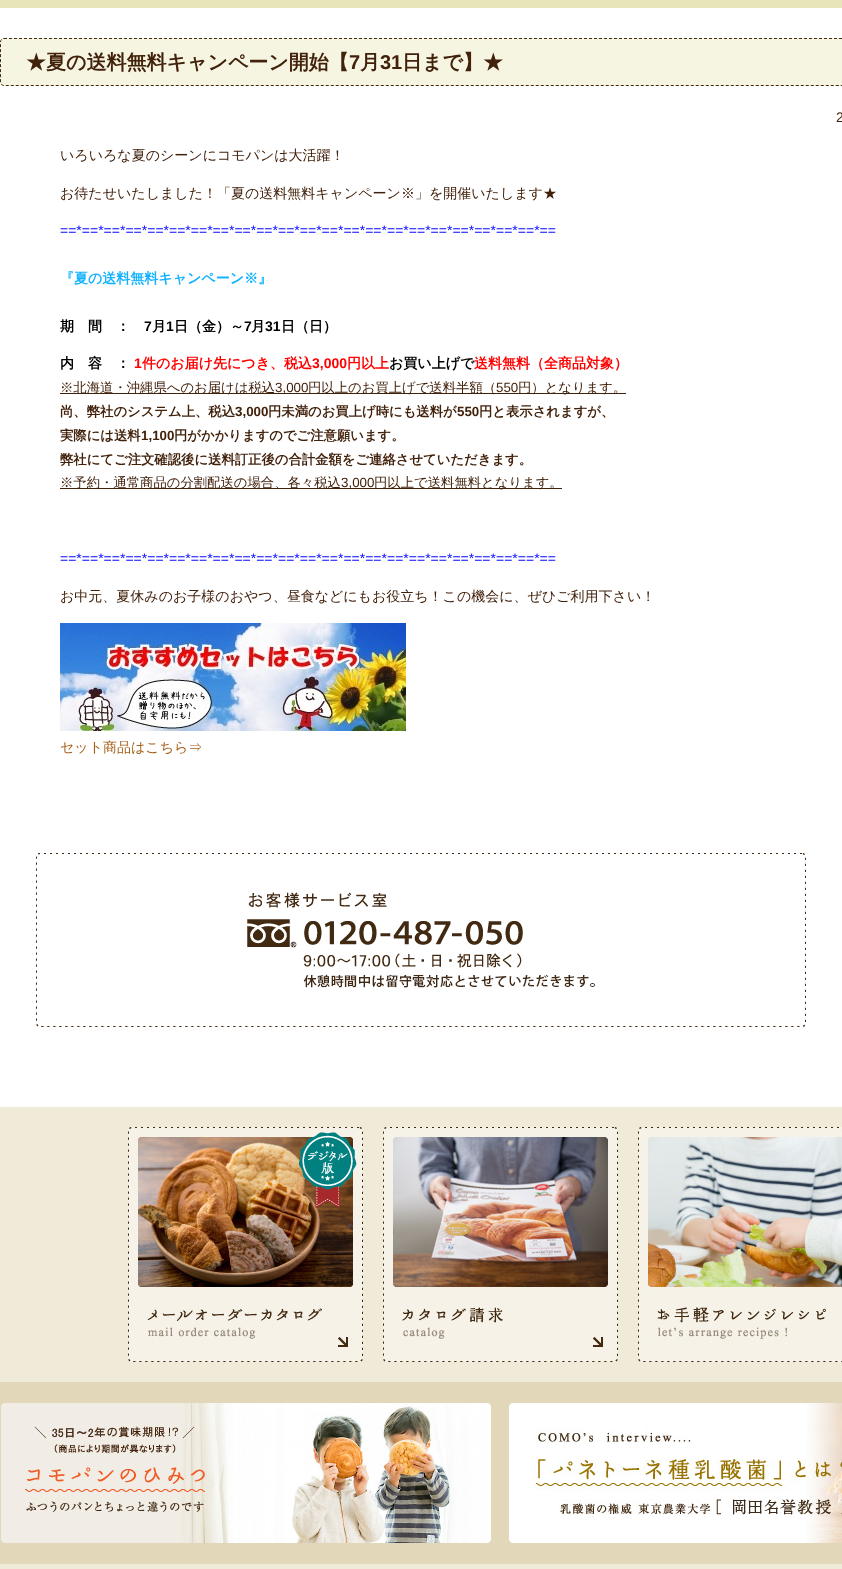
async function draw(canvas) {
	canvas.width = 842;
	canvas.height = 1569;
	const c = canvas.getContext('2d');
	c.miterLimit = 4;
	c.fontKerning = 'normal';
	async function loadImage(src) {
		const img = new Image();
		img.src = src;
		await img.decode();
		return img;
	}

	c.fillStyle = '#fff';
	c.fillRect(0, 0, 842, 1569);
	c.fillStyle = '#e6e6b8';
	c.fillRect(0, 0, 842, 8);
	c.fillStyle = '#f5f5e1';
	c.beginPath();
	c.roundRect(0, 38, 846, 48, 4);
	c.fill();
	c.beginPath();
	c.moveTo(4, 38.5);
	c.lineTo(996, 38.5);
	c.bezierCurveTo(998, 38.5, 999.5, 40, 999.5, 42);
	c.lineTo(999.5, 82);
	c.bezierCurveTo(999.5, 84, 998, 85.5, 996, 85.5);
	c.lineTo(4, 85.5);
	c.bezierCurveTo(2, 85.5, 0.5, 84, 0.5, 82);
	c.lineTo(0.5, 42);
	c.bezierCurveTo(0.5, 40, 2, 38.5, 4, 38.5);
	c.closePath();
	c.strokeStyle = '#422911';
	c.setLineDash([3, 2]);
	c.stroke();
	c.font = 'bold 20px WenQuanYi Zen Hei';
	c.fillStyle = '#42210b';
	c.fillText('★夏の送料無料キャンペーン開始【', 26, 69);
	c.font = 'bold 20px Liberation Sans';
	c.fillText('7', 349, 69);
	c.font = 'bold 20px WenQuanYi Zen Hei';
	c.fillText('月', 360, 69);
	c.font = 'bold 20px Liberation Sans';
	c.fillText('31', 380, 69);
	c.font = 'bold 20px WenQuanYi Zen Hei';
	c.fillText('日まで】★', 402, 69);
	c.font = '14px Liberation Sans';
	c.fillText('2', 836, 122);
	c.font = '500 14px WenQuanYi Zen Hei';
	c.fillText('いろいろな夏のシーンにコモパンは大活躍！', 60, 160);
	c.fillText('お待たせいたしました！「夏の送料無料キャンペーン※」を開催いたします★', 60, 198);
	c.font = '14px Liberation Sans';
	c.fillStyle = '#0003ff';
	c.fillText('==*==*==*==*==*==*==*==*==*==*==*==*==*==*==*==*==*==*==*==*==*==*==', 60, 235);
	c.font = 'bold 14px WenQuanYi Zen Hei';
	c.fillStyle = '#10b2ff';
	c.fillText('『夏の送料無料キャンペーン※』', 60, 283);
	c.fillStyle = '#000';
	c.fillText('期　間　：', 60, 331);
	c.font = 'bold 14px Liberation Sans';
	c.fillText('7', 144, 331);
	c.font = 'bold 14px WenQuanYi Zen Hei';
	c.fillText('月', 152, 331);
	c.font = 'bold 14px Liberation Sans';
	c.fillText('1', 166, 331);
	c.font = 'bold 14px WenQuanYi Zen Hei';
	c.fillText('日（金）～', 174, 331);
	c.font = 'bold 14px Liberation Sans';
	c.fillText('7', 244, 331);
	c.font = 'bold 14px WenQuanYi Zen Hei';
	c.fillText('月', 251, 331);
	c.font = 'bold 14px Liberation Sans';
	c.fillText('31', 265, 331);
	c.font = 'bold 14px WenQuanYi Zen Hei';
	c.fillText('日（日）', 281, 331);
	c.fillText('内　容　：', 60, 368);
	c.font = 'bold 14px Liberation Sans';
	c.fillStyle = '#f00';
	c.fillText('1', 134, 368);
	c.font = 'bold 14px WenQuanYi Zen Hei';
	c.fillText('件のお届け先につき、税込', 142, 368);
	c.font = 'bold 14px Liberation Sans';
	c.fillText('3,000', 312, 368);
	c.font = 'bold 14px WenQuanYi Zen Hei';
	c.fillText('円以上', 347, 368);
	c.fillStyle = '#000';
	c.fillText('お買い上げで', 389, 368);
	c.fillStyle = '#f00';
	c.fillText('送料無料（全商品対象）', 474, 368);
	c.fillStyle = '#42210b';
	c.fillRect(60, 393, 566, 1);
	c.font = '500 13.35px WenQuanYi Zen Hei';
	c.fillText('※北海道・沖縄県へのお届けは税込', 60, 392);
	c.font = '13.35px Liberation Sans';
	c.fillText('3,000', 275, 392);
	c.font = '500 13.35px WenQuanYi Zen Hei';
	c.fillText('円以上のお買上げで送料半額（', 308, 392);
	c.font = '13.35px Liberation Sans';
	c.fillText('550', 496, 392);
	c.font = '500 13.35px WenQuanYi Zen Hei';
	c.fillText('円）となります。', 518, 392);
	c.font = 'bold 13.35px WenQuanYi Zen Hei';
	c.fillText('尚、弊社のシステム上、税込', 60, 416);
	c.font = 'bold 13.35px Liberation Sans';
	c.fillText('3,000', 235, 416);
	c.font = 'bold 13.35px WenQuanYi Zen Hei';
	c.fillText('円未満のお買上げ時にも送料が', 268, 416);
	c.font = 'bold 13.35px Liberation Sans';
	c.fillText('550', 457, 416);
	c.font = 'bold 13.35px WenQuanYi Zen Hei';
	c.fillText('円と表示されますが、', 479, 416);
	c.fillText('実際には送料', 60, 440);
	c.font = 'bold 13.35px Liberation Sans';
	c.fillText('1,100', 141, 440);
	c.font = 'bold 13.35px WenQuanYi Zen Hei';
	c.fillText('円がかかりますのでご注意願います。', 174, 440);
	c.fillText('弊社にてご注文確認後に送料訂正後の合計金額をご連絡させていただきます。', 60, 464);
	c.fillRect(60, 488, 502, 1);
	c.font = '500 13.35px WenQuanYi Zen Hei';
	c.fillText('※予約・通常商品の分割配送の場合、各々税込', 60, 487);
	c.font = '13.35px Liberation Sans';
	c.fillText('3,000', 341, 487);
	c.font = '500 13.35px WenQuanYi Zen Hei';
	c.fillText('円以上で送料無料となります。', 374, 487);
	c.font = '14px Liberation Sans';
	c.fillStyle = '#0003ff';
	c.fillText('==*==*==*==*==*==*==*==*==*==*==*==*==*==*==*==*==*==*==*==*==*==*==', 60, 563);
	c.font = '500 14px WenQuanYi Zen Hei';
	c.fillStyle = '#42210b';
	c.fillText('お中元、夏休みのお子様のおやつ、昼食などにもお役立ち！この機会に、ぜひご利用下さい！', 60, 601);
	c.drawImage(await loadImage('img1.png'), 60, 623, 346, 108);
	c.fillStyle = '#a65e18';
	c.fillText('セット商品はこちら⇒', 60, 752);
	c.drawImage(await loadImage('img2.png'), 36, 853, 770, 174);
	c.fillStyle = '#f0ead9';
	c.fillRect(0, 1107, 842, 275);
	c.drawImage(await loadImage('img3.png'), 128, 1127, 235, 235);
	c.drawImage(await loadImage('img4.png'), 383, 1127, 235, 235);
	c.drawImage(await loadImage('img5.png'), 638, 1127, 204, 235);
	c.fillStyle = '#e2d7b9';
	c.fillRect(0, 1382, 842, 182);
	c.drawImage(await loadImage('img6.png'), 1, 1403, 490, 140);
	c.drawImage(await loadImage('img7.png'), 509, 1403, 333, 140);
	c.fillStyle = '#f0ead9';
	c.fillRect(0, 1564, 842, 5);
}

draw(document.querySelector('canvas'));
